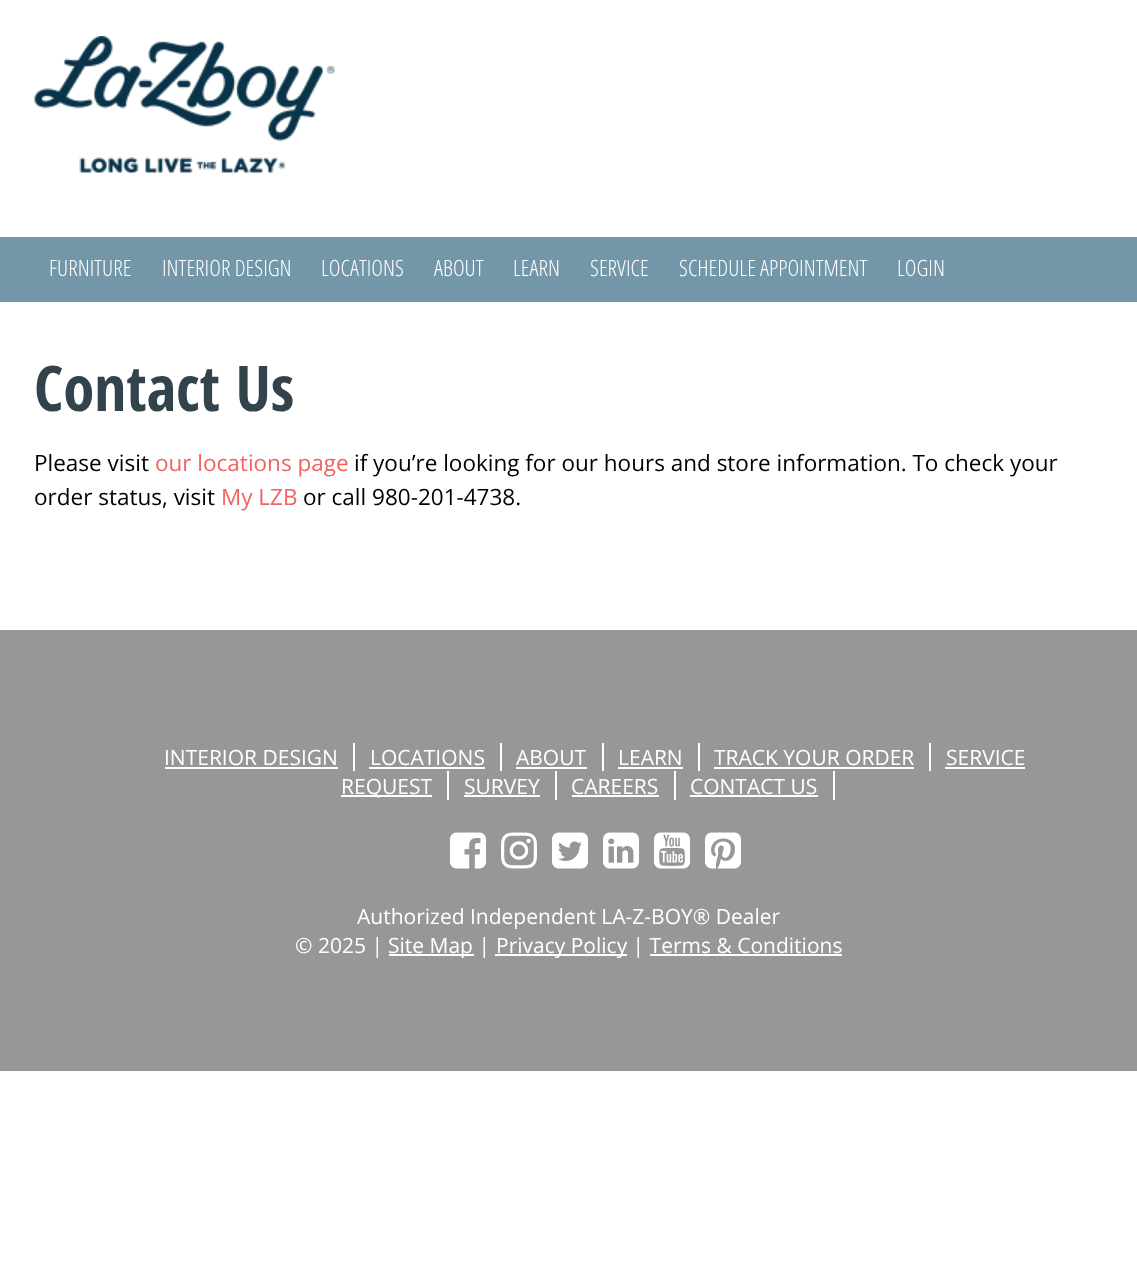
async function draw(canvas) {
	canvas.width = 1137;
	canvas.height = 1263;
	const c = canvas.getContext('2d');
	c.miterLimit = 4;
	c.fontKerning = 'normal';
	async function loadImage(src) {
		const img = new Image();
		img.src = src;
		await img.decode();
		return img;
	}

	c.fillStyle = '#fff';
	c.fillRect(0, 0, 1137, 1263);
	c.drawImage(await loadImage('img1.png'), 34, 36, 301, 137);
	c.fillStyle = '#7397a8';
	c.fillRect(0, 237, 1137, 65);
	c.font = '300 22.5px Open Sans Condensed';
	c.fillStyle = '#fff';
	for (const [text, x, y] of [
		['FURNITURE', 49, 276],
		['INTERIOR DESIGN', 162, 276],
		['LOCATIONS', 321, 276],
		['ABOUT', 434, 276],
		['LEARN', 513, 276],
		['SERVICE', 590, 276],
		['SCHEDULE APPOINTMENT', 679, 276],
		['LOGIN', 897, 276],
	]) {
		c.fillText(text, x, y);
	}
	c.font = 'bold 63px Open Sans Condensed';
	c.fillStyle = '#33434b';
	c.fillText('Contact Us', 34, 411);
	c.font = '22.5px Open Sans';
	c.fillStyle = '#000';
	c.fillText('Please visit', 34, 471);
	c.fillStyle = '#f2635f';
	c.fillText('our locations page', 155, 471);
	c.fillStyle = '#000';
	c.fillText('if you’re looking for our hours and store information. To check your', 354, 471);
	c.fillText('order status, visit', 34, 505);
	c.fillStyle = '#f2635f';
	c.fillText('My LZB', 221, 505);
	c.fillStyle = '#000';
	c.fillText('or call 980-201-4738.', 303, 505);
	c.fillStyle = '#979797';
	c.fillRect(0, 630, 1137, 441);
	c.font = '21px Open Sans';
	c.fillStyle = '#fff';
	c.fillText('INTERIOR DESIGN', 164, 765);
	c.fillRect(353, 743, 2, 28);
	c.fillRect(165, 767, 173, 2);
	c.fillText('LOCATIONS', 370, 765);
	c.fillRect(500, 743, 2, 28);
	c.fillRect(369, 767, 116, 2);
	c.fillText('ABOUT', 516, 765);
	c.fillRect(602, 743, 2, 28);
	c.fillRect(516, 767, 71, 2);
	c.fillText('LEARN', 618, 765);
	c.fillRect(698, 743, 2, 28);
	c.fillRect(618, 767, 65, 2);
	c.fillText('TRACK YOUR ORDER', 714, 765);
	c.fillRect(929, 743, 2, 28);
	c.fillRect(714, 767, 200, 2);
	c.fillText('SERVICE', 946, 765);
	c.fillRect(945, 767, 80, 2);
	c.fillRect(341, 795, 91, 2);
	c.fillText('REQUEST', 341, 794);
	c.fillRect(447, 771, 2, 29);
	c.fillText('SURVEY', 464, 794);
	c.fillRect(555, 771, 2, 29);
	c.fillRect(464, 795, 76, 2);
	c.fillText('CAREERS', 571, 794);
	c.fillRect(674, 771, 2, 29);
	c.fillRect(572, 795, 87, 2);
	c.fillText('CONTACT US', 690, 794);
	c.fillRect(833, 771, 2, 29);
	c.fillRect(690, 795, 128, 2);
	c.drawImage(await loadImage('img2.png'), 450, 832, 36, 37);
	c.drawImage(await loadImage('img3.png'), 501, 832, 36, 37);
	c.drawImage(await loadImage('img4.png'), 552, 832, 36, 37);
	c.drawImage(await loadImage('img5.png'), 603, 832, 36, 37);
	c.drawImage(await loadImage('img6.png'), 654, 832, 36, 37);
	c.drawImage(await loadImage('img7.png'), 705, 832, 36, 37);
	c.fillText('Authorized Independent LA-Z-BOY® Dealer', 357, 924);
	c.fillText('© 2025 |', 295, 953);
	c.fillRect(389, 954, 85, 2);
	c.fillText('Site Map |', 388, 953);
	c.fillRect(495, 954, 132, 2);
	c.fillText('Privacy Policy | Terms & Conditions', 496, 953);
	c.fillRect(650, 954, 192, 2);
}

draw(document.querySelector('canvas'));
